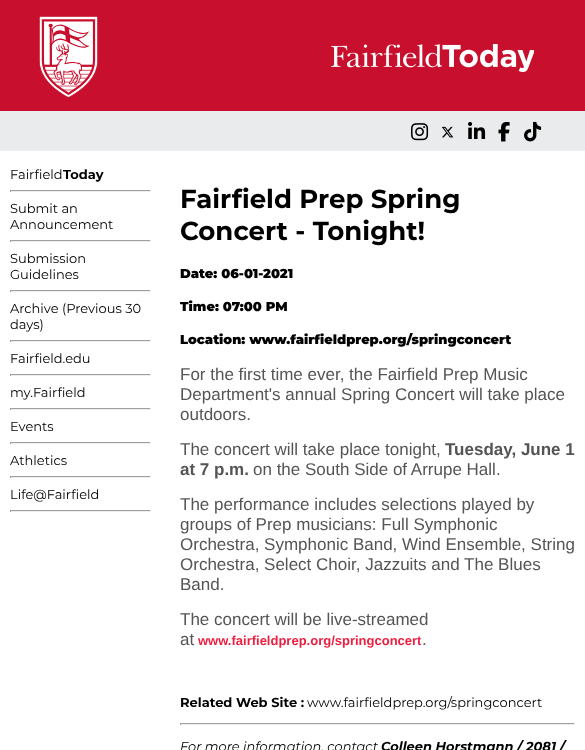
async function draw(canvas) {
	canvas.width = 585;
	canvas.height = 750;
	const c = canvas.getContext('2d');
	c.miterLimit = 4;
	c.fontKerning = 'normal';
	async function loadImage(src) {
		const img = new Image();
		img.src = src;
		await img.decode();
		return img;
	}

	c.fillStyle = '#fff';
	c.fillRect(0, 0, 585, 750);
	c.fillStyle = '#c8102e';
	c.fillRect(0, 0, 585, 111);
	c.drawImage(await loadImage('img1.png'), 39, 16, 59, 82);
	c.drawImage(await loadImage('img2.png'), 331, 44, 203, 28);
	c.fillStyle = '#eaebec';
	c.fillRect(0, 111, 585, 40);
	c.drawImage(await loadImage('img3.png'), 411, 123, 18, 18);
	c.drawImage(await loadImage('img4.png'), 441, 126, 13, 12);
	c.drawImage(await loadImage('img5.png'), 468, 122, 18, 17);
	c.drawImage(await loadImage('img6.png'), 498, 121, 12, 21);
	c.drawImage(await loadImage('img7.png'), 524, 121, 18, 21);
	c.font = '13px Montserrat';
	c.fillStyle = '#000';
	c.fillText('Fairfield', 10, 179);
	c.font = 'bold 13px Montserrat';
	c.fillText('Today', 63, 179);
	for (const [x, y, w, h, color] of [
		[10, 190, 141, 1, '#9f9f9f'],
		[150, 190, 1, 2, '#eee'],
		[10, 191, 141, 1, '#eee'],
		[10, 190, 1, 2, '#9f9f9f'],
	]) {
		c.fillStyle = color;
		c.fillRect(x, y, w, h);
	}
	c.font = '13px Montserrat';
	c.fillStyle = '#000';
	c.fillText('Submit an', 10, 213);
	c.fillText('Announcement', 10, 229);
	for (const [x, y, w, h, color] of [
		[10, 240, 141, 1, '#9f9f9f'],
		[150, 240, 1, 2, '#eee'],
		[10, 241, 141, 1, '#eee'],
		[10, 240, 1, 2, '#9f9f9f'],
	]) {
		c.fillStyle = color;
		c.fillRect(x, y, w, h);
	}
	c.fillStyle = '#000';
	c.fillText('Submission', 10, 263);
	c.fillText('Guidelines', 10, 279);
	for (const [x, y, w, h, color] of [
		[10, 290, 141, 1, '#9f9f9f'],
		[150, 290, 1, 2, '#eee'],
		[10, 291, 141, 1, '#eee'],
		[10, 290, 1, 2, '#9f9f9f'],
	]) {
		c.fillStyle = color;
		c.fillRect(x, y, w, h);
	}
	c.fillStyle = '#000';
	c.fillText('Archive (Previous 30', 10, 313);
	c.fillText('days)', 10, 329);
	for (const [x, y, w, h, color] of [
		[10, 340, 141, 1, '#9f9f9f'],
		[150, 340, 1, 2, '#eee'],
		[10, 341, 141, 1, '#eee'],
		[10, 340, 1, 2, '#9f9f9f'],
	]) {
		c.fillStyle = color;
		c.fillRect(x, y, w, h);
	}
	c.fillStyle = '#000';
	c.fillText('Fairfield.edu', 10, 363);
	for (const [x, y, w, h, color] of [
		[10, 374, 141, 1, '#9f9f9f'],
		[150, 374, 1, 2, '#eee'],
		[10, 375, 141, 1, '#eee'],
		[10, 374, 1, 2, '#9f9f9f'],
	]) {
		c.fillStyle = color;
		c.fillRect(x, y, w, h);
	}
	c.fillStyle = '#000';
	c.fillText('my.Fairfield', 10, 397);
	for (const [x, y, w, h, color] of [
		[10, 408, 141, 1, '#9f9f9f'],
		[150, 408, 1, 2, '#eee'],
		[10, 409, 141, 1, '#eee'],
		[10, 408, 1, 2, '#9f9f9f'],
	]) {
		c.fillStyle = color;
		c.fillRect(x, y, w, h);
	}
	c.fillStyle = '#000';
	c.fillText('Events', 10, 431);
	for (const [x, y, w, h, color] of [
		[10, 442, 141, 1, '#9f9f9f'],
		[150, 442, 1, 2, '#eee'],
		[10, 443, 141, 1, '#eee'],
		[10, 442, 1, 2, '#9f9f9f'],
	]) {
		c.fillStyle = color;
		c.fillRect(x, y, w, h);
	}
	c.fillStyle = '#000';
	c.fillText('Athletics', 10, 465);
	for (const [x, y, w, h, color] of [
		[10, 476, 141, 1, '#9f9f9f'],
		[150, 476, 1, 2, '#eee'],
		[10, 477, 141, 1, '#eee'],
		[10, 476, 1, 2, '#9f9f9f'],
	]) {
		c.fillStyle = color;
		c.fillRect(x, y, w, h);
	}
	c.fillStyle = '#000';
	c.fillText('Life@Fairfield', 10, 499);
	for (const [x, y, w, h, color] of [
		[10, 510, 141, 1, '#9f9f9f'],
		[150, 510, 1, 2, '#eee'],
		[10, 511, 141, 1, '#eee'],
		[10, 510, 1, 2, '#9f9f9f'],
	]) {
		c.fillStyle = color;
		c.fillRect(x, y, w, h);
	}
	c.font = 'bold 26px Montserrat';
	c.fillStyle = '#000';
	c.fillText('Fairfield Prep Spring', 180, 208);
	c.fillText('Concert - Tonight!', 180, 240);
	c.font = '900 13px Montserrat';
	for (const [text, x, y] of [
		['Date: 06-01-2021', 180, 278],
		['Time: 07:00 PM', 180, 311],
		['Location: www.fairfieldprep.org/springconcert', 180, 344],
	]) {
		c.fillText(text, x, y);
	}
	c.font = '17px Liberation Sans';
	c.fillStyle = '#555';
	for (const [text, x, y] of [
		['For the first time ever, the Fairfield Prep Music', 180, 380],
		['Department\'s annual Spring Concert will take place', 180, 400],
		['outdoors.', 180, 420],
		['The concert will take place tonight,', 180, 455],
	]) {
		c.fillText(text, x, y);
	}
	c.font = 'bold 17px Liberation Sans';
	c.fillText('Tuesday, June 1', 445, 455);
	c.fillText('at 7 p.m.', 180, 475);
	c.font = '17px Liberation Sans';
	for (const [text, x, y] of [
		['on the South Side of Arrupe Hall.', 253, 475],
		['The performance includes selections played by', 180, 510],
		['groups of Prep musicians: Full Symphonic', 180, 530],
		['Orchestra, Symphonic Band, Wind Ensemble, String', 180, 550],
		['Orchestra, Select Choir, Jazzuits and The Blues', 180, 570],
		['Band.', 180, 590],
		['The concert will be live-streamed', 180, 625],
		['at', 180, 645],
	]) {
		c.fillText(text, x, y);
	}
	c.font = 'bold 13px Liberation Sans';
	c.fillStyle = '#ed1e40';
	c.fillText('www.fairfieldprep.org/springconcert', 198, 645);
	c.font = '17px Liberation Sans';
	c.fillStyle = '#555';
	c.fillText('.', 422, 645);
	c.font = 'bold 13px Montserrat';
	c.fillStyle = '#000';
	c.fillText('Related Web Site :', 180, 707);
	c.font = '13px Montserrat';
	c.fillText('www.fairfieldprep.org/springconcert', 307, 707);
	for (const [x, y, w, h, color] of [
		[180, 723, 395, 1, '#9f9f9f'],
		[574, 723, 1, 2, '#eee'],
		[180, 724, 395, 1, '#eee'],
		[180, 723, 1, 2, '#9f9f9f'],
	]) {
		c.fillStyle = color;
		c.fillRect(x, y, w, h);
	}
	c.font = 'italic 13px Montserrat';
	c.fillStyle = '#000';
	c.fillText('For more information, contact', 180, 751);
	c.font = 'italic bold 13px Montserrat';
	c.fillText('Colleen Horstmann / 2081 /', 381, 751);
}

draw(document.querySelector('canvas'));
